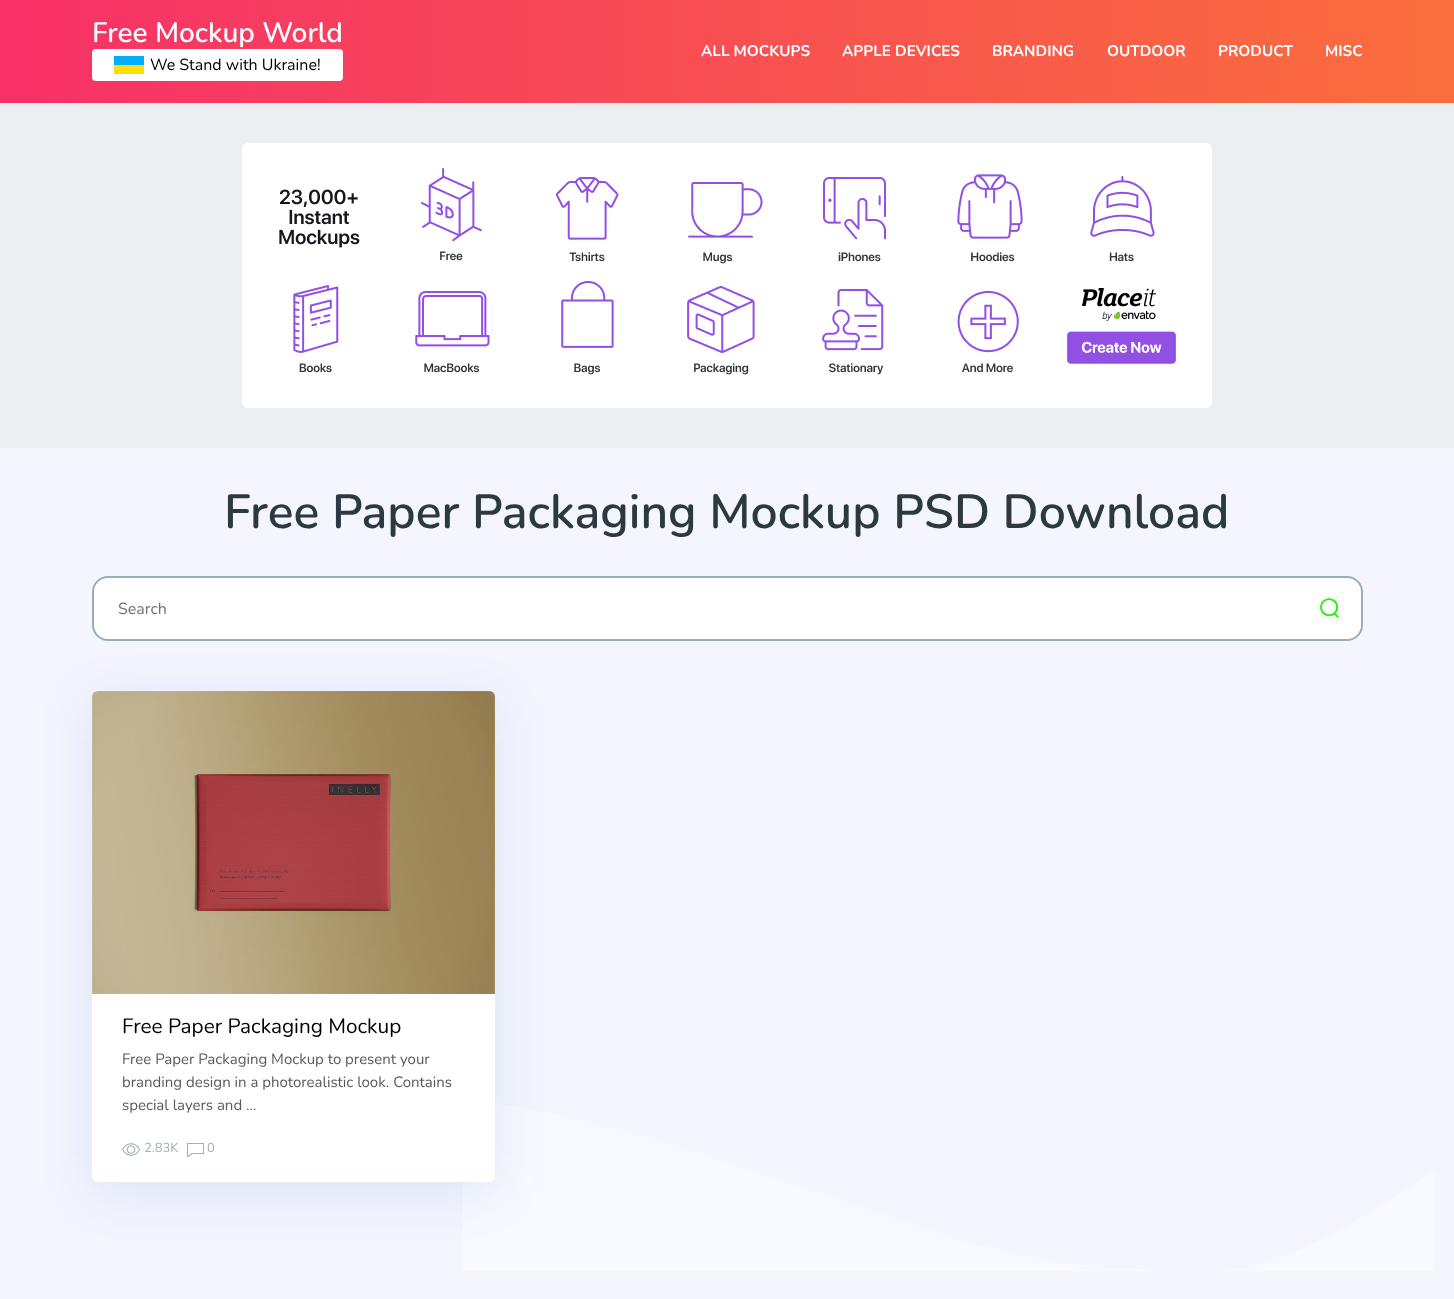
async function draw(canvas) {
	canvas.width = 1454;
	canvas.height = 1299;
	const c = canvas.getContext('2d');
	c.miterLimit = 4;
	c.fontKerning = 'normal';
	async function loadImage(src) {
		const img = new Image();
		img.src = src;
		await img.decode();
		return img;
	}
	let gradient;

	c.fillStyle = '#f4f5fd';
	c.fillRect(0, 0, 1454, 1299);
	gradient = c.createLinearGradient(0, 52, 1454, 51);
	gradient.addColorStop(0, '#f63068');
	gradient.addColorStop(1, '#fa6e3d');
	c.fillStyle = gradient;
	c.fillRect(0, 0, 1454, 103);
	c.font = '200 28px Nunito';
	c.fillStyle = '#fff';
	c.fillText('Free Mockup World', 92, 42);
	c.beginPath();
	c.roundRect(92, 49, 251, 32, 4);
	c.fill();
	c.fillStyle = '#ffde00';
	c.fillRect(114, 65, 30, 9);
	c.fillStyle = '#00aeff';
	c.fillRect(114, 56, 30, 9);
	c.font = '200 16px "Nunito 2"';
	c.fillStyle = '#000';
	c.fillText('We Stand with Ukraine!', 150, 70);
	c.font = '200 15.25px "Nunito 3"';
	c.fillStyle = '#fff';
	for (const [text, x, y] of [
		['ALL MOCKUPS', 701, 56],
		['APPLE DEVICES', 842, 56],
		['BRANDING', 992, 56],
		['OUTDOOR', 1107, 56],
		['PRODUCT', 1218, 56],
		['MISC', 1325, 56],
	]) {
		c.fillText(text, x, y);
	}
	c.fillStyle = '#ebeff1';
	c.fillRect(0, 103, 1454, 345);
	c.fillStyle = '#fff';
	c.beginPath();
	c.roundRect(242, 143, 970, 265, 6);
	c.fill();
	c.drawImage(await loadImage('img1.png'), 279, 168, 897, 207);
	c.font = '200 48px Nunito';
	c.fillStyle = '#2c3941';
	c.fillText('Free Paper Packaging Mockup PSD Download', 224, 528);
	c.fillStyle = '#fff';
	c.beginPath();
	c.roundRect(93, 577, 1269, 63, 15);
	c.fill();
	c.strokeStyle = '#99adba';
	c.lineWidth = 2;
	c.stroke();
	c.font = '200 16px "Nunito 2"';
	c.fillStyle = '#6c757d';
	c.fillText('Search', 118, 614);
	c.drawImage(await loadImage('img2.png'), 1320, 598, 19, 19);
	c.drawImage(await loadImage('img5.png'), 463, 1103, 972, 168);
	c.fillStyle = '#044bc21a';
	c.filter = 'blur(25px)';
	c.beginPath();
	c.roundRect(92, 701, 403, 491, 6);
	c.fill();
	c.filter = 'none';
	c.fillStyle = '#fff';
	c.beginPath();
	c.roundRect(92, 691, 403, 491, 6);
	c.fill();
	c.drawImage(await loadImage('img3.png'), 92, 691, 403, 303);
	c.font = '200 20.75px "Nunito 2"';
	c.fillStyle = '#000';
	c.fillText('Free Paper Packaging Mockup', 122, 1033);
	c.font = '200 15px "Nunito 2"';
	c.fillStyle = '#5a5a5a';
	for (const [text, x, y] of [
		['Free Paper Packaging Mockup to present your', 122, 1064],
		['branding design in a photorealistic look. Contains', 122, 1087],
		['special layers and …', 122, 1110],
	]) {
		c.fillText(text, x, y);
	}
	c.drawImage(await loadImage('img4.png'), 122, 1143, 18, 13);
	c.font = '200 13px "Nunito 2"';
	c.fillStyle = '#a3b0b9';
	c.fillText('2.83K', 144, 1152);
	c.save();
	c.beginPath();
	c.rect(187, 1143, 17, 14);
	c.clip();
	c.beginPath();
	c.moveTo(203.5, 1143.5);
	c.lineTo(187.5, 1143.5);
	c.lineTo(187.5, 1157);
	c.lineTo(192, 1153.5);
	c.lineTo(203.5, 1153.5);
	c.closePath();
	c.strokeStyle = '#a3b0b9';
	c.lineWidth = 1.1;
	c.stroke();
	c.restore();
	c.fillText('0', 207, 1152);
}

draw(document.querySelector('canvas'));
